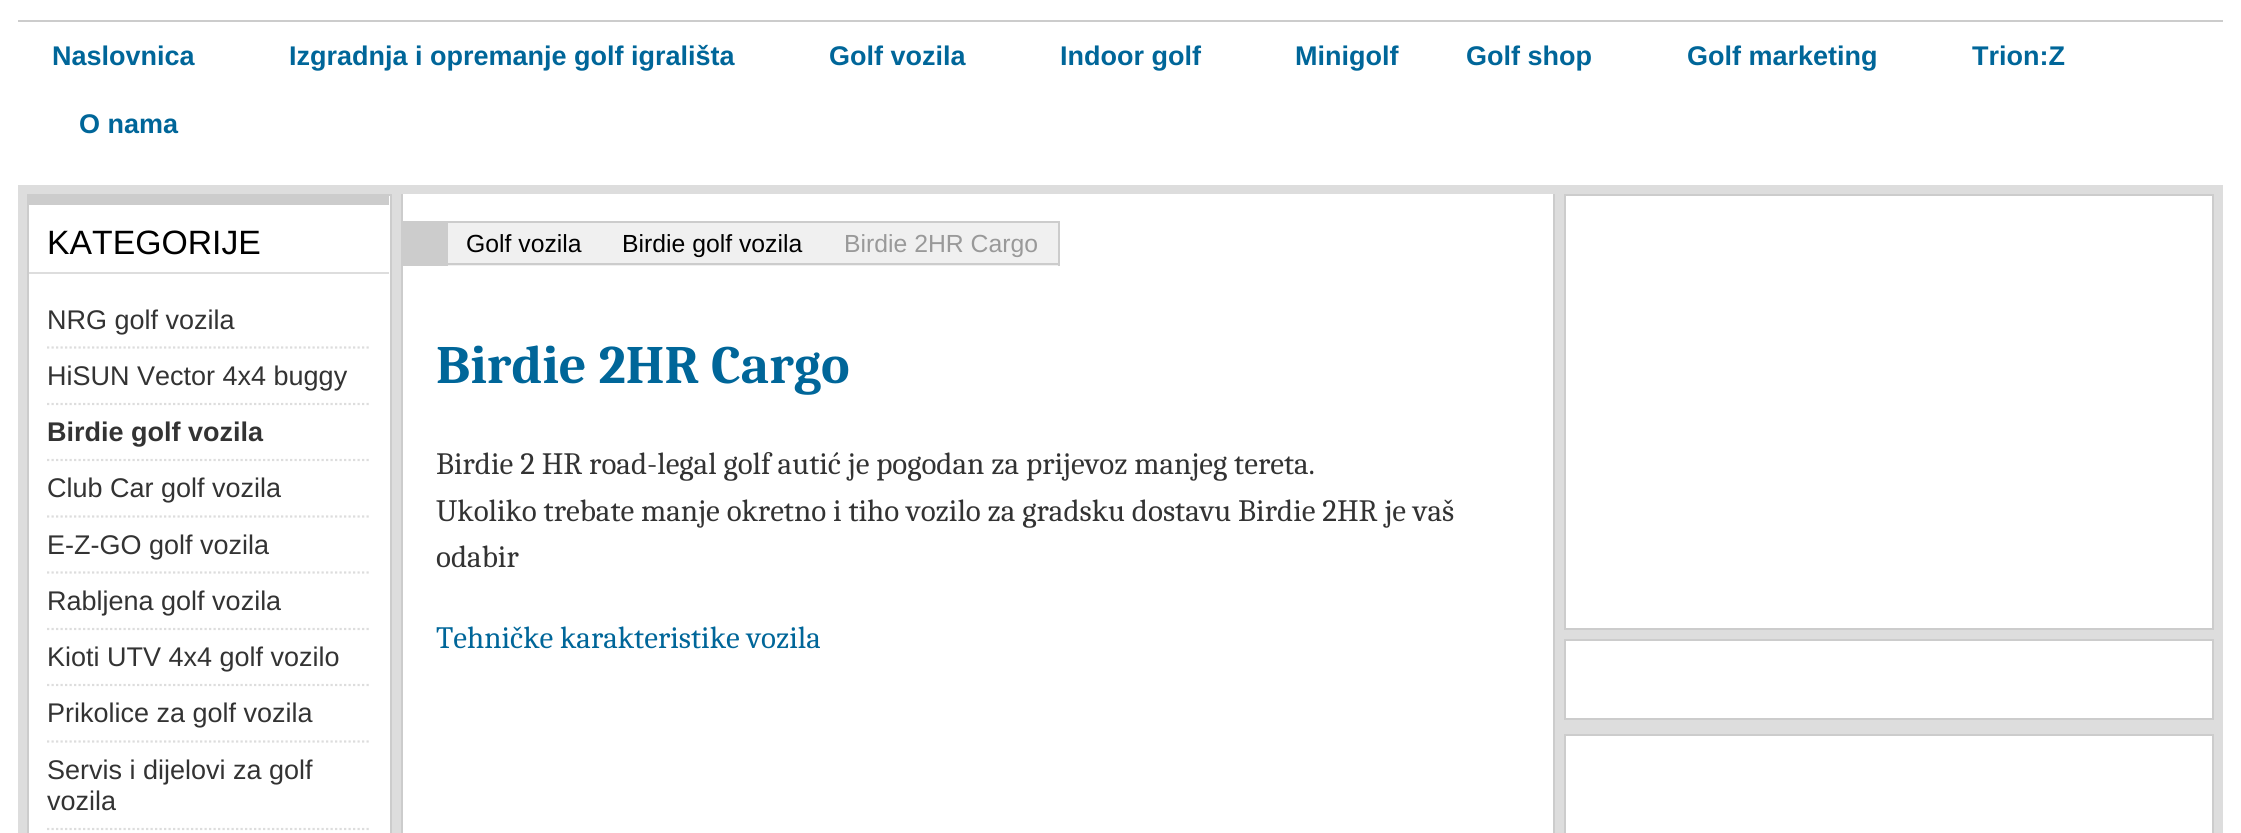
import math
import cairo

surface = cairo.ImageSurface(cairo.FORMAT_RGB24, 2241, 833)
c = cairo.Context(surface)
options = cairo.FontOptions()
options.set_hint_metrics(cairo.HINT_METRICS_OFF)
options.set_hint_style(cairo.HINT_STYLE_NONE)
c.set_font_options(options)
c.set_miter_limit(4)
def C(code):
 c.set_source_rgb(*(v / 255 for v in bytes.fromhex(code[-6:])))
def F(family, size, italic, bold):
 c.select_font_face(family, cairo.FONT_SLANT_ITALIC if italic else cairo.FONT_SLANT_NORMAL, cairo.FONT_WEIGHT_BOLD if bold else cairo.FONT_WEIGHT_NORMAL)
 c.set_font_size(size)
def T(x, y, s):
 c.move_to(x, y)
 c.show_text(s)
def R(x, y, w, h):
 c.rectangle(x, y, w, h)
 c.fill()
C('ffffff')
c.paint()
C('cccccc')
R(18,20,2205,2)
F('Liberation Sans',27,0,1)
C('006699')
T(52,65,'Naslovnica')
T(289,65,'Izgradnja i opremanje golf igrališta')
T(829,65,'Golf vozila')
T(1060,65,'Indoor golf')
T(1295,65,'Minigolf')
T(1466,65,'Golf shop')
T(1687,65,'Golf marketing')
T(1972,65,'Trion:Z')
T(79,133,'O nama')
C('dddddd')
R(18,185,2205,648)
C('ffffff')
c.rectangle(28,195,363,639)
c.fill_preserve()
C('cccccc')
c.stroke()
R(29,196,360,9)
C('dddddd')
R(29,272,360,2)
F('Liberation Sans',33.75,0,0)
C('000000')
T(47,254,'KATEGORIJE')
c.new_path()
c.move_to(47,347.5)
c.line_to(371,347.5)
C('dddddd')
c.set_line_width(2.2)
c.set_dash([2.25,2.25])
c.stroke()
F('Liberation Sans',27,0,0)
C('333333')
T(47,329,'NRG golf vozila')
c.new_path()
c.move_to(47,404)
c.line_to(371,404)
C('dddddd')
c.stroke()
C('333333')
T(47,385,'HiSUN Vector 4x4 buggy')
c.new_path()
c.move_to(47,460)
c.line_to(371,460)
C('dddddd')
c.stroke()
F('Liberation Sans',27,0,1)
C('333333')
T(47,441,'Birdie golf vozila')
c.new_path()
c.move_to(47,516.5)
c.line_to(371,516.5)
C('dddddd')
c.stroke()
F('Liberation Sans',27,0,0)
C('333333')
T(47,497,'Club Car golf vozila')
c.new_path()
c.move_to(47,572.5)
c.line_to(371,572.5)
C('dddddd')
c.stroke()
C('333333')
T(47,554,'E-Z-GO golf vozila')
c.new_path()
c.move_to(47,629)
c.line_to(371,629)
C('dddddd')
c.stroke()
C('333333')
T(47,610,'Rabljena golf vozila')
c.new_path()
c.move_to(47,685)
c.line_to(371,685)
C('dddddd')
c.stroke()
C('333333')
T(47,666,'Kioti UTV 4x4 golf vozilo')
c.new_path()
c.move_to(47,741.5)
c.line_to(371,741.5)
C('dddddd')
c.stroke()
C('333333')
T(47,722,'Prikolice za golf vozila')
c.new_path()
c.move_to(47,829)
c.line_to(371,829)
C('dddddd')
c.stroke()
C('333333')
T(47,779,'Servis i dijelovi za golf')
T(47,810,'vozila')
C('ffffff')
R(403,194,1150,639)
C('cccccc')
R(1553,194,2,639)
R(401,194,2,639)
C('f0f0f0')
R(448,223,610,43)
C('cccccc')
R(448,221,612,2)
R(1058,221,2,45)
R(448,263,612,2)
R(403,221,45,45)
F('Liberation Sans',24.75,0,0)
C('000000')
T(466,252,'Golf vozila')
T(622,252,'Birdie golf vozila')
C('999999')
T(844,252,'Birdie 2HR Cargo')
F('Caladea',54,0,1)
C('006699')
T(436,383,'Birdie 2HR Cargo')
F('Caladea',31.05,0,0)
C('333333')
T(436,474,'Birdie 2 HR road-legal golf autić je pogodan za prijevoz manjeg tereta.')
T(436,521,'Ukoliko trebate manje okretno i tiho vozilo za gradsku dostavu Birdie 2HR je vaš')
T(436,567,'odabir')
C('006699')
T(436,648,'Tehničke karakteristike vozila')
C('ffffff')
c.rectangle(1565,195,648,434)
c.fill_preserve()
C('cccccc')
c.set_line_width(2)
c.set_dash([])
c.stroke()
C('ffffff')
c.rectangle(1565,640,648,79)
c.fill_preserve()
C('cccccc')
c.stroke()
C('ffffff')
c.rectangle(1565,735,648,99)
c.fill_preserve()
C('cccccc')
c.stroke()
surface.write_to_png('o.png')
